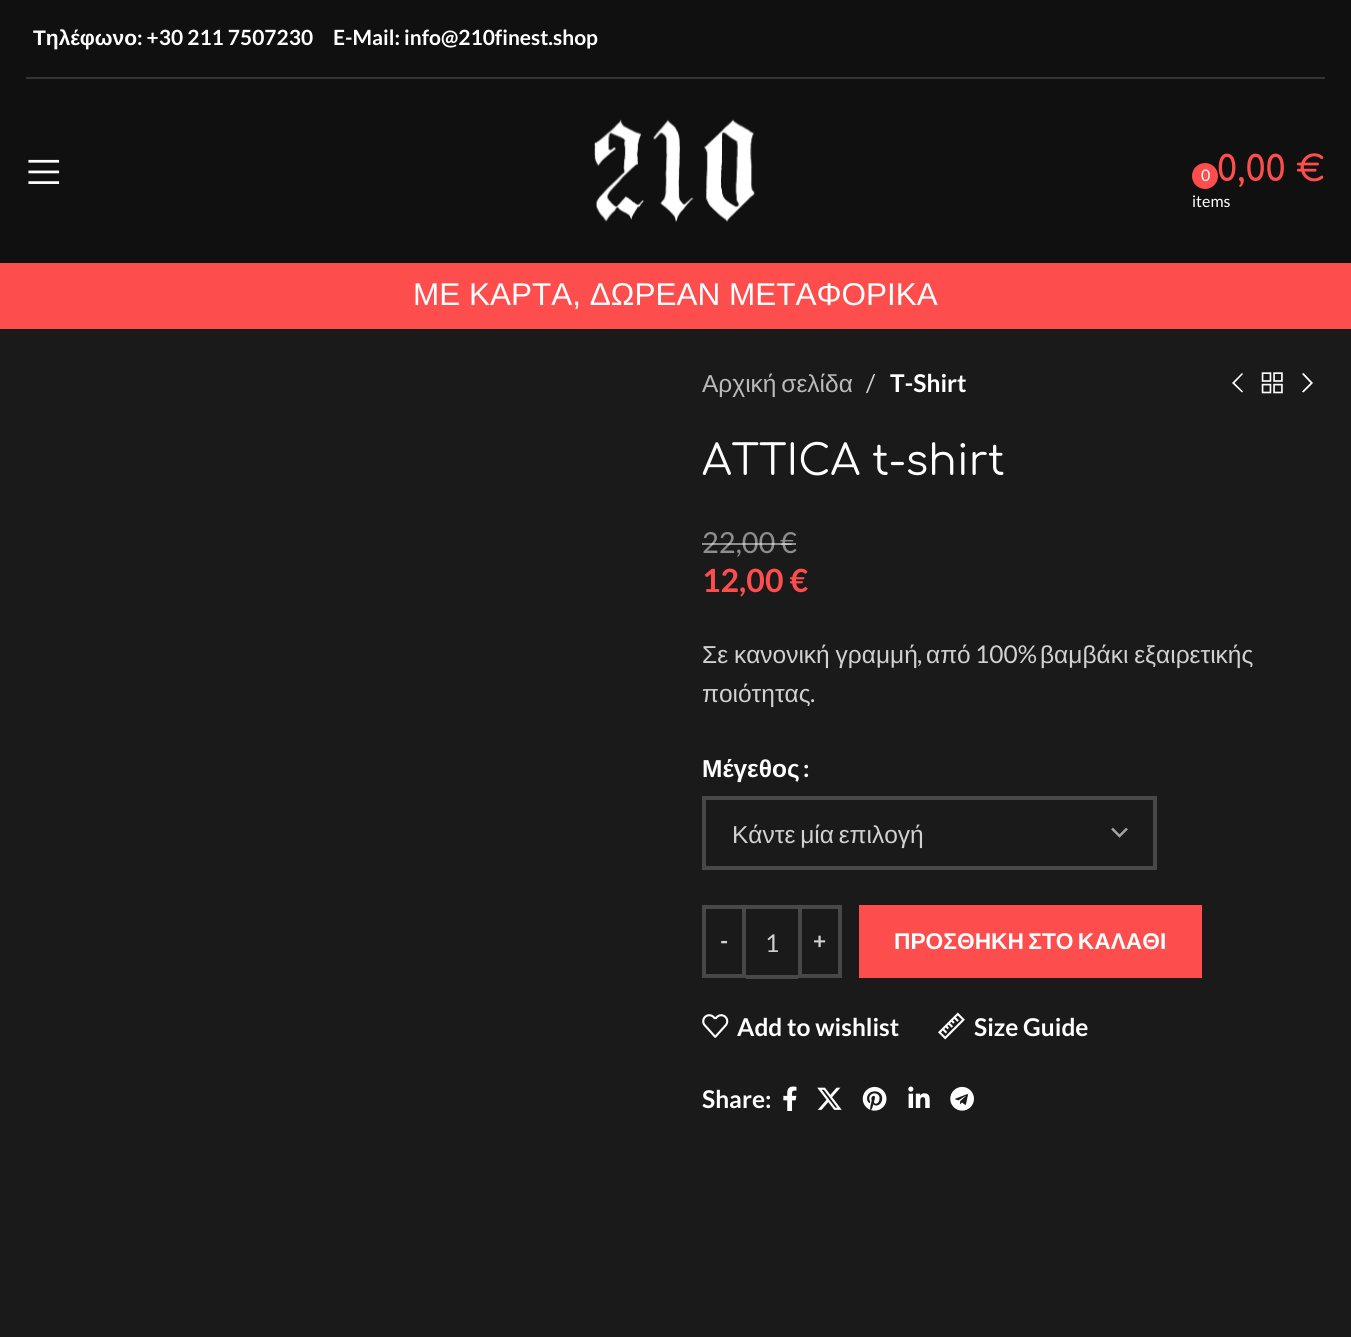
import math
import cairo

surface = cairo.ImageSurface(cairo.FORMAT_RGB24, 1351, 1337)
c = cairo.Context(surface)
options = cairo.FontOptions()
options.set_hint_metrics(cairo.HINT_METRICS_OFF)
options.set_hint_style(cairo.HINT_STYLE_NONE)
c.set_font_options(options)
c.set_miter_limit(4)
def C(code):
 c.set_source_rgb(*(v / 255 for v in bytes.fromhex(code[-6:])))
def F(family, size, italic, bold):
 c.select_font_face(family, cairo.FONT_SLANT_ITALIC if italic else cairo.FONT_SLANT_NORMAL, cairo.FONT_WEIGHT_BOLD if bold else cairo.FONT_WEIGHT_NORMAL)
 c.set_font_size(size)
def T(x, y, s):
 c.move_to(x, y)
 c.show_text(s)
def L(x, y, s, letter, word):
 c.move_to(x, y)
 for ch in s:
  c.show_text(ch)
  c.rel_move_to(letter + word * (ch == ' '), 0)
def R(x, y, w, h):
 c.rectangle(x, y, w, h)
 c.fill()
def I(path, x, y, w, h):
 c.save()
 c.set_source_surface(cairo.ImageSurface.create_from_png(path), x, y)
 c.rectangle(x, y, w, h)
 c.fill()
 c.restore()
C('1a1a1a')
c.paint()
C('101010')
R(0,0,1351,263)
C('343434')
R(26,77,1299,2)
F('Liberation Sans',21,0,1)
C('ffffff')
T(33,45,'Τηλέφωνο')
F('Lato',21,0,1)
T(137,45,': +30 211 7507230')
T(333,45,'E-Mail: info@210finest.shop')
I('1.png',28,159,32,25)
I('2.png',594,119,161,103)
C('fd4d4d')
c.arc(1205,176,13,0,2 * math.pi)
c.fill()
F('Lato',16,0,0)
C('ffffff')
T(1201,181,'0')
T(1192,207,'items')
F('Comfortaa SemiBold',35,0,0)
C('fd4d4d')
T(1217,181,'0,00 €')
R(0,263,1351,66)
F('Liberation Sans',31.5,0,0)
C('ffffff')
T(413,305,'ΜΕ ΚΑΡΤΑ, ΔΩΡΕΑΝ ΜΕΤΑΦΟΡΙΚΑ')
F('Liberation Sans',24.5,0,0)
C('bababa')
L(702,392,'Αρχική σελίδα',0,-2)
F('Lato',24.5,0,0)
C('d1d1d1')
T(866,392,'/')
F('Lato',24.5,0,1)
C('ffffff')
T(890,392,'T-Shirt')
c.new_path()
c.move_to(1243,374)
c.line_to(1242,373)
c.line_to(1232,383)
c.line_to(1242,392.5)
c.line_to(1243,391.5)
c.line_to(1234.5,383)
c.close_path()
c.fill()
I('3.png',1261,372,22,22)
c.new_path()
c.move_to(1302,374)
c.line_to(1310.5,383)
c.line_to(1302,391.5)
c.line_to(1303.5,392.5)
c.line_to(1313,383)
c.line_to(1303.5,373)
c.close_path()
c.fill()
F('Comfortaa',42,0,0)
T(702,475,'ATTICA t-shirt')
F('Lato',29,0,0)
C('8d8d8d')
T(702,553,'22,00')
c.set_source_rgba(1,1,1,0.5)
R(702,543,79,2)
C('8d8d8d')
T(780,553,'€')
c.set_source_rgba(1,1,1,0.5)
R(781,543,15,2)
F('Lato',32,0,1)
C('fd4d4d')
T(702,592,'12,00 €')
F('Liberation Sans',24.5,0,0)
C('d1d1d1')
L(702,663,'Σε κανονική γραμμή',0,-1)
F('Lato',24.5,0,0)
T(917,663,',')
F('Liberation Sans',24.5,0,0)
T(926,663,'από')
F('Lato',24.5,0,0)
T(975,663,'100%')
F('Liberation Sans',24.5,0,0)
L(1040,663,'βαμβάκι εξαιρετικής',0,-1)
T(702,702,'ποιότητας')
F('Lato',24.5,0,0)
T(810,702,'.')
F('Liberation Sans',24.5,0,1)
C('ffffff')
T(702,777,'Μέγεθος')
F('Lato',24.5,0,1)
T(803,777,':')
c.new_path()
c.move_to(1112,828.5)
c.line_to(1119.5,836)
c.line_to(1127,828.5)
C('a3a3a3')
c.set_line_width(2.5)
c.stroke()
c.rectangle(704,798,451,70)
C('484848')
c.set_line_width(4)
c.stroke()
F('Liberation Sans',24.5,0,0)
C('d1d1d1')
L(732,843,'Κάντε μία επιλογή',0,-2)
c.rectangle(704,907,40,69)
C('484848')
c.stroke()
F('Lato',22.75,0,1)
C('d1d1d1')
T(720,949,'-')
C('484848')
R(746,905,52,4)
R(746,975,52,4)
F('Lato',24.5,0,0)
C('d1d1d1')
T(765,952,'1')
c.rectangle(800,907,40,69)
C('484848')
c.stroke()
F('Lato',22.75,0,1)
C('d1d1d1')
T(813,949,'+')
C('fd4d4d')
R(859,905,343,73)
F('Liberation Sans',22.75,0,1)
C('ffffff')
L(894,949,'ΠΡΟΣΘΗΚΗ ΣΤΟ ΚΑΛΑΘΙ',0,-2)
I('4.png',702,1014,27,24)
F('Lato',24.5,0,1)
T(737,1036,'Add to wishlist')
I('5.png',938,1012,27,28)
T(974,1036,'Size Guide')
T(702,1108,'Share:')
I('6.png',783,1086,14,25)
I('7.png',817,1087,25,23)
I('8.png',862,1086,25,25)
I('9.png',908,1086,22,22)
I('10.png',950,1086,24,25)
surface.write_to_png('o.png')
